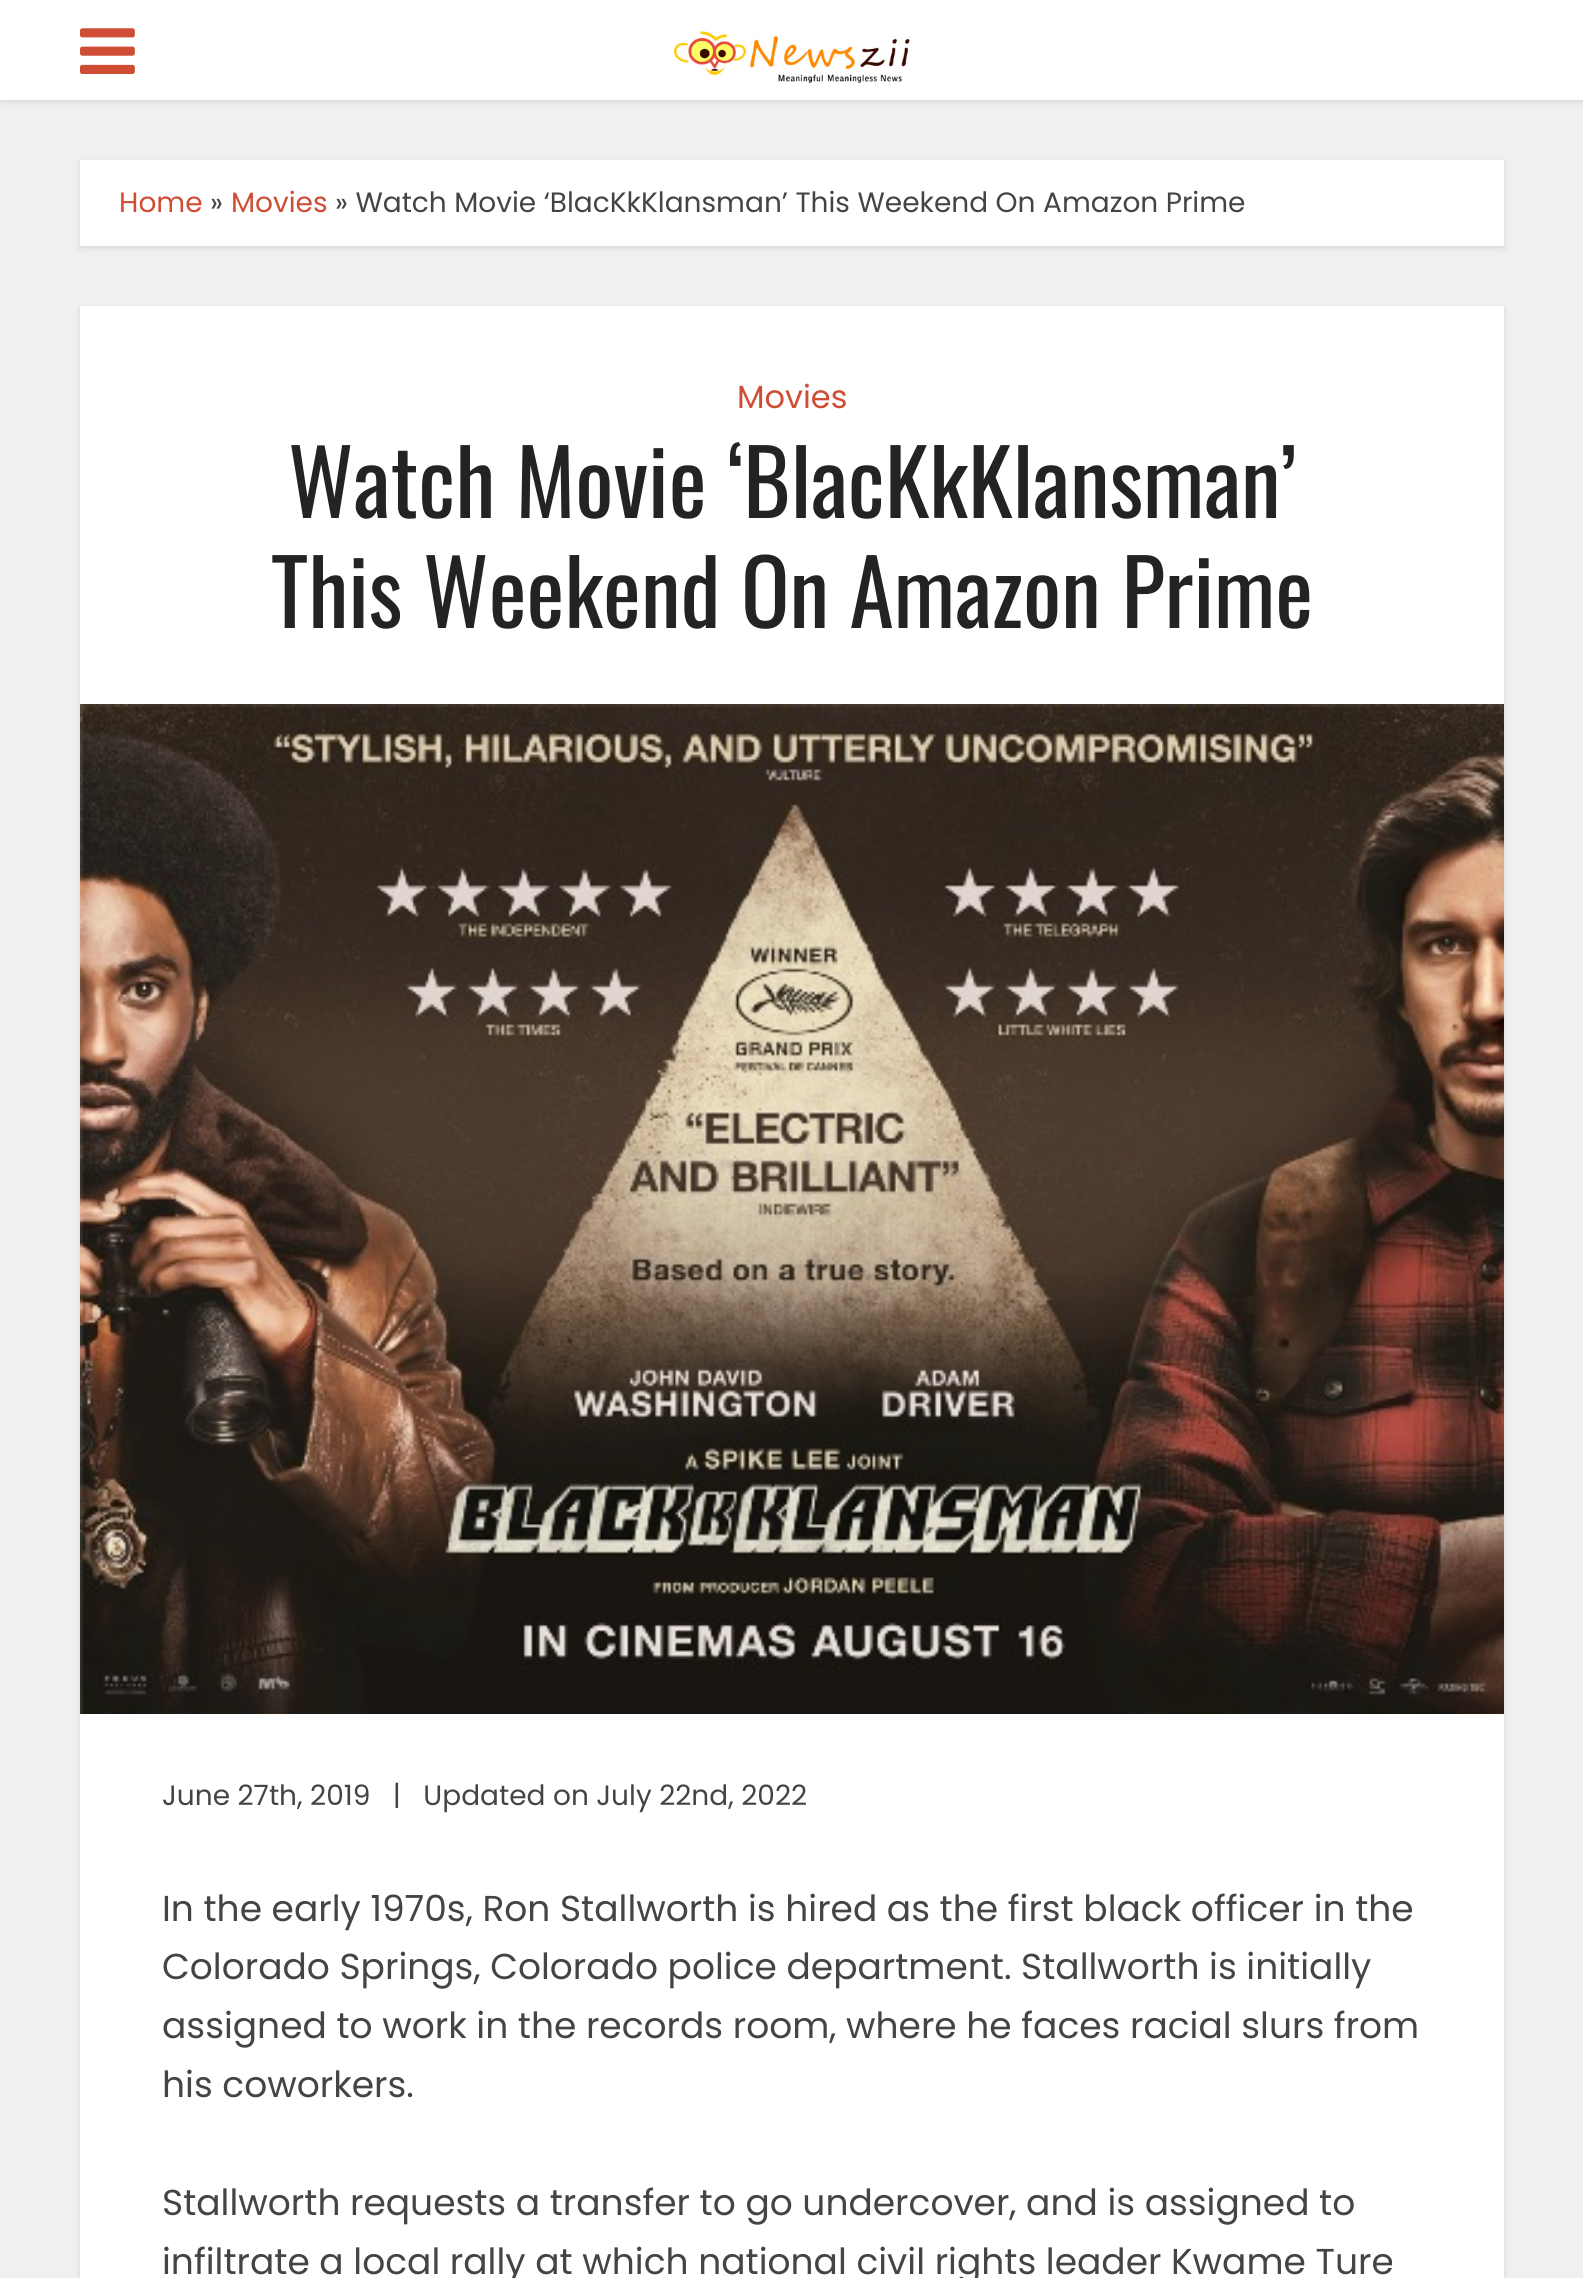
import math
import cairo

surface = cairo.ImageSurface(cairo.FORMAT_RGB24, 1583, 2278)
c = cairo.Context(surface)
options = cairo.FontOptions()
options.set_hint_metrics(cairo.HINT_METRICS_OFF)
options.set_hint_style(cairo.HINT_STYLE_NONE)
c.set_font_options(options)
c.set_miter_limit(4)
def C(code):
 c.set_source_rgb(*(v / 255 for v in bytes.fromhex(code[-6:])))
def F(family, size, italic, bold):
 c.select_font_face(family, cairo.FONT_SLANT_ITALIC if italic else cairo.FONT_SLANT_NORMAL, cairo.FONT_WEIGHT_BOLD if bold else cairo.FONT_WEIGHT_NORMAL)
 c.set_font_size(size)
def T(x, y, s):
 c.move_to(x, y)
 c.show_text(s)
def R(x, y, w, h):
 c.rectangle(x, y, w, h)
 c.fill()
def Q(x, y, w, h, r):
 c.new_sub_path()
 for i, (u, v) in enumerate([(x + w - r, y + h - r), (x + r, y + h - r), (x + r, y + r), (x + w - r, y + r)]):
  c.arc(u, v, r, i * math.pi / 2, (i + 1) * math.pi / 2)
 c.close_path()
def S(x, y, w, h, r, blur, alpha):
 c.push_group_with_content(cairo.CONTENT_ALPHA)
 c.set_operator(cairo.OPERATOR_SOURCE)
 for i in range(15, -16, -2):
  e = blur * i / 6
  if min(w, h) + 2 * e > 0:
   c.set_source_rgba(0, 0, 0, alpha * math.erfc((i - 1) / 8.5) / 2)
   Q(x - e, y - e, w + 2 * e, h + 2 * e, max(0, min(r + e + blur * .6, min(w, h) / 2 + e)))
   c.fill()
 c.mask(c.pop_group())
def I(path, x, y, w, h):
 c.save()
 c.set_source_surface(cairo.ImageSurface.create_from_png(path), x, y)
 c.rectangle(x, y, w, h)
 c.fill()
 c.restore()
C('f0f0f0')
c.paint()
C('000000')
S(0,2,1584,100,0,3,.1)
C('ffffff')
R(0,0,1583,100)
I('1.png',80,28,55,46)
I('2.png',673,31,237,52)
C('000000')
S(80,162,1424,86,0,3,.1)
C('ffffff')
R(80,160,1424,86)
F('Poppins',28,0,0)
C('cf4d35')
T(119,212,'Home')
C('444444')
T(210,212,'»')
C('cf4d35')
T(231,212,'Movies')
C('444444')
T(335,212,'» Watch Movie ‘BlacKkKlansman’ This Weekend On Amazon Prime')
C('000000')
S(80,308,1424,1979,0,3,.1)
C('ffffff')
R(80,306,1424,1972)
F('Poppins',32,0,0)
C('cf4d35')
T(737,408,'Movies')
F('Oswald',90,0,0)
C('232323')
T(288,518,'Watch Movie ‘BlacKkKlansman’')
T(271,628,'This Weekend On Amazon Prime')
I('3.png',80,704,1424,1010)
F('Poppins',28,0,0)
C('444444')
T(162,1805,'June 27th, 2019   |   Updated on July 22nd, 2022')
F('Poppins',36,0,0)
T(162,1921,'In the early 1970s, Ron Stallworth is hired as the first black officer in the')
T(162,1979,'Colorado Springs, Colorado police department. Stallworth is initially')
T(162,2038,'assigned to work in the records room, where he faces racial slurs from')
T(162,2097,'his coworkers.')
T(162,2215,'Stallworth requests a transfer to go undercover, and is assigned to')
T(162,2274,'infiltrate a local rally at which national civil rights leader Kwame Ture')
surface.write_to_png('o.png')
